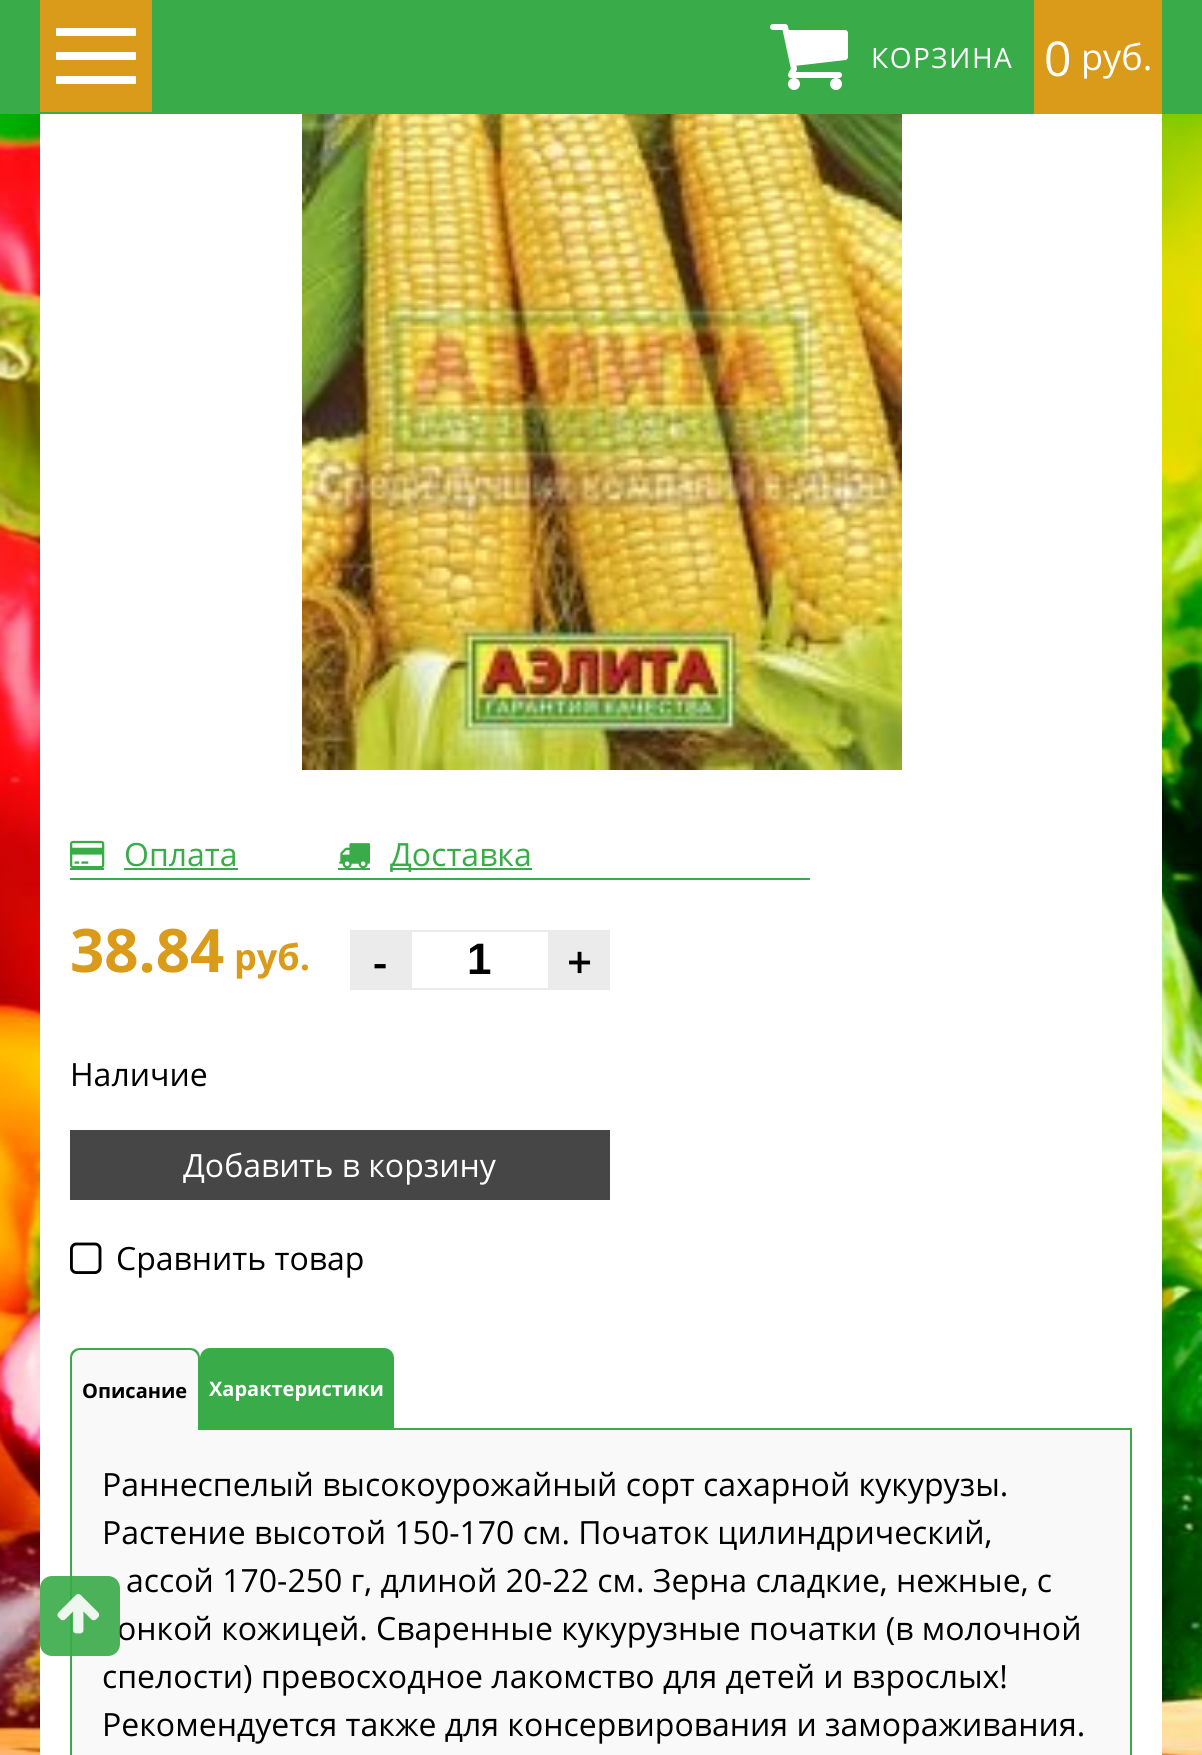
import math
import cairo

surface = cairo.ImageSurface(cairo.FORMAT_RGB24, 1202, 1755)
c = cairo.Context(surface)
options = cairo.FontOptions()
options.set_hint_metrics(cairo.HINT_METRICS_OFF)
options.set_hint_style(cairo.HINT_STYLE_NONE)
c.set_font_options(options)
c.set_miter_limit(4)
def C(code):
 c.set_source_rgb(*(v / 255 for v in bytes.fromhex(code[-6:])))
def F(family, size, italic, bold):
 c.select_font_face(family, cairo.FONT_SLANT_ITALIC if italic else cairo.FONT_SLANT_NORMAL, cairo.FONT_WEIGHT_BOLD if bold else cairo.FONT_WEIGHT_NORMAL)
 c.set_font_size(size)
def T(x, y, s):
 c.move_to(x, y)
 c.show_text(s)
def L(x, y, s, letter, word):
 c.move_to(x, y)
 for ch in s:
  c.show_text(ch)
  c.rel_move_to(letter + word * (ch == ' '), 0)
def R(x, y, w, h):
 c.rectangle(x, y, w, h)
 c.fill()
def Q(x, y, w, h, r):
 c.new_sub_path()
 for i, (u, v) in enumerate([(x + w - r, y + h - r), (x + r, y + h - r), (x + r, y + r), (x + w - r, y + r)]):
  c.arc(u, v, r, i * math.pi / 2, (i + 1) * math.pi / 2)
 c.close_path()
def I(path, x, y, w, h):
 c.save()
 c.set_source_surface(cairo.ImageSurface.create_from_png(path), x, y)
 c.rectangle(x, y, w, h)
 c.fill()
 c.restore()
C('ffffff')
c.paint()
I('1.png',0,114,1202,1641)
C('39ab49')
R(0,0,1202,114)
C('d99b19')
R(40,0,112,112)
C('ffffff')
R(56,28,80,8)
R(56,52,80,8)
R(56,76,80,8)
I('2.png',770,24,78,66)
F('Open Sans',28,0,0)
L(871,68,'КОРЗИНА',1.5,0)
C('d99b19')
R(1034,0,128,114)
F('Open Sans',48,0,0)
C('ffffff')
T(1044,76,'0')
F('Open Sans',36,0,0)
T(1081,70,'руб.')
R(40,114,1122,1641)
I('3.png',302,114,600,656)
C('39ab49')
R(70,878,740,2)
I('4.png',70,840,35,28)
F('Open Sans',32,0,0)
T(124,866,'Оплата')
R(70,868,34,2)
R(124,868,114,2)
I('5.png',339,843,31,25)
R(390,868,142,2)
T(390,866,'Доставка')
R(338,868,32,2)
F('Open Sans',60,0,1)
C('d99b19')
T(70,972,'38.84')
F('Open Sans',36,0,1)
T(234,970,'руб.')
C('ebebeb')
R(350,930,60,60)
F('Open Sans SemiBold',44,0,0)
C('000000')
T(373,978,'-')
c.rectangle(411,931,138,58)
C('ebebeb')
c.stroke()
F('Liberation Sans',44,0,1)
C('000000')
T(467,974,'1')
C('ebebeb')
R(550,930,60,60)
F('Open Sans SemiBold',44,0,0)
C('000000')
T(567,978,'+')
F('Open Sans',32,0,0)
T(70,1086,'Наличие')
C('464646')
R(70,1130,540,70)
C('ffffff')
T(183,1177,'Добавить в корзину')
I('6.png',70,1242,32,32)
C('000000')
T(116,1270,'Cравнить товар')
C('f9f9f9')
c.rectangle(71,1429,1060,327)
c.fill_preserve()
C('39ab49')
c.stroke()
C('f9f9f9')
c.new_path()
c.move_to(80,1348)
c.line_to(190,1348)
c.curve_to(195.5,1348,200,1352.5,200,1358)
c.line_to(200,1430)
c.line_to(70,1430)
c.line_to(70,1358)
c.curve_to(70,1352.5,74.5,1348,80,1348)
c.close_path()
c.fill()
C('39ab49')
c.set_fill_rule(cairo.FILL_RULE_EVEN_ODD)
c.new_path()
c.move_to(80,1348)
c.line_to(190,1348)
c.curve_to(196,1348,200,1352,200,1358)
c.line_to(200,1430)
c.line_to(70,1430)
c.line_to(70,1358)
c.curve_to(70,1352,74,1348,80,1348)
c.close_path()
c.move_to(80,1350)
c.line_to(190,1350)
c.curve_to(194,1350,198,1354,198,1358)
c.line_to(198,1430)
c.line_to(72,1430)
c.line_to(72,1358)
c.curve_to(72,1354,76,1350,80,1350)
c.close_path()
c.fill()
F('Open Sans',20,0,1)
C('000000')
T(82,1398,'Описание')
C('39ab49')
c.new_path()
c.move_to(210,1348)
c.line_to(384,1348)
c.curve_to(389.5,1348,394,1352.5,394,1358)
c.line_to(394,1428)
c.line_to(200,1428)
c.line_to(200,1358)
c.curve_to(200,1352.5,204.5,1348,210,1348)
c.close_path()
c.fill()
C('ffffff')
T(209,1396,'Характеристики')
F('Open Sans',32,0,0)
C('000000')
T(102,1496,'Раннеспелый высокоурожайный сорт сахарной кукурузы.')
T(102,1544,'Растение высотой 150-170 см. Початок цилиндрический,')
T(126,1592,'ассой 170-250 г, длиной 20-22 см. Зерна сладкие, нежные, с')
T(117,1640,'онкой кожицей. Сваренные кукурузные початки (в молочной')
T(102,1688,'спелости) превосходное лакомство для детей и взрослых!')
T(102,1736,'Рекомендуется также для консервирования и замораживания.')
c.set_source_rgba(0.224,0.671,0.286,0.9)
Q(40,1576,80,80,12)
c.fill()
I('7.png',57,1594,43,40)
surface.write_to_png('o.png')
